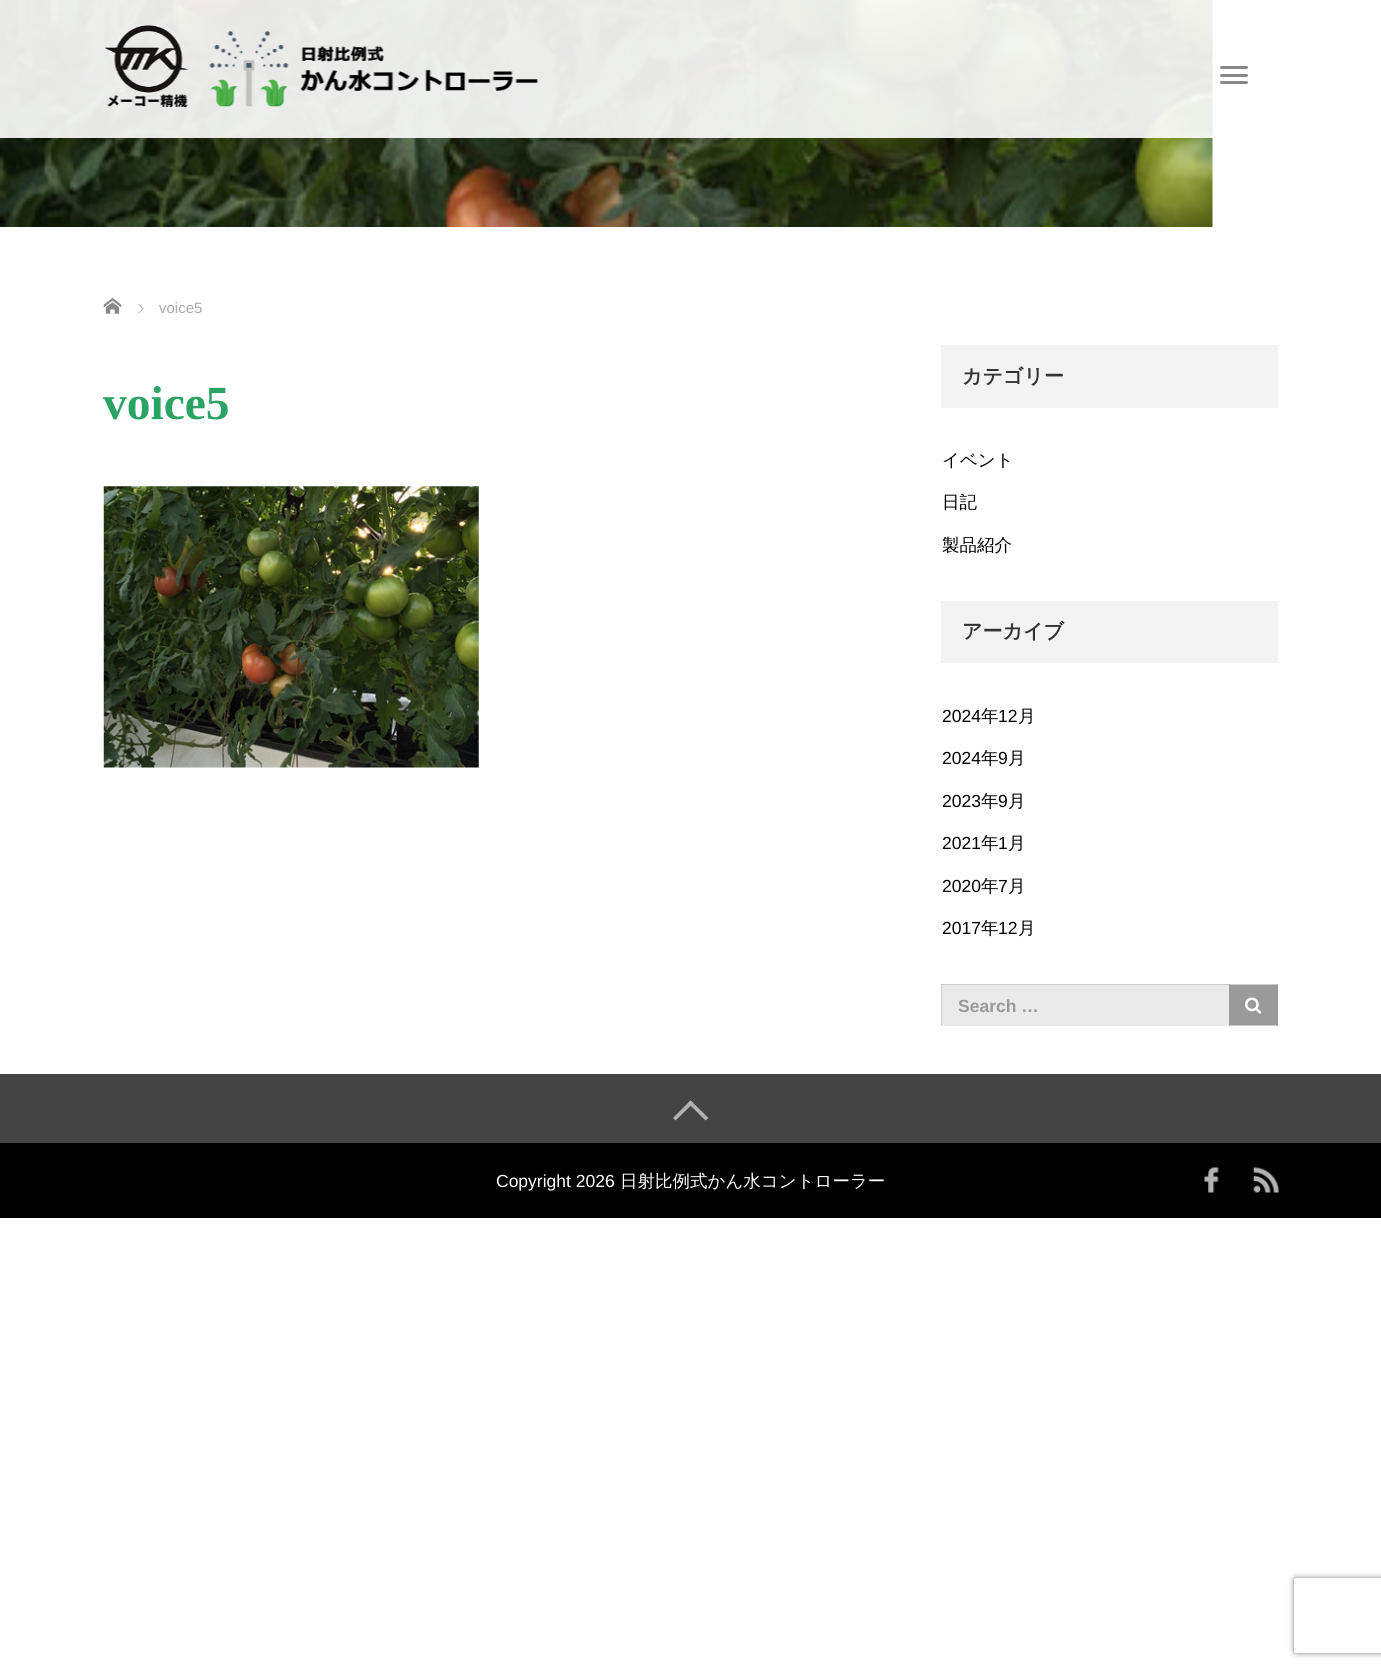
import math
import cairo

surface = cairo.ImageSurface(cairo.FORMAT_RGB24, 1381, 1670)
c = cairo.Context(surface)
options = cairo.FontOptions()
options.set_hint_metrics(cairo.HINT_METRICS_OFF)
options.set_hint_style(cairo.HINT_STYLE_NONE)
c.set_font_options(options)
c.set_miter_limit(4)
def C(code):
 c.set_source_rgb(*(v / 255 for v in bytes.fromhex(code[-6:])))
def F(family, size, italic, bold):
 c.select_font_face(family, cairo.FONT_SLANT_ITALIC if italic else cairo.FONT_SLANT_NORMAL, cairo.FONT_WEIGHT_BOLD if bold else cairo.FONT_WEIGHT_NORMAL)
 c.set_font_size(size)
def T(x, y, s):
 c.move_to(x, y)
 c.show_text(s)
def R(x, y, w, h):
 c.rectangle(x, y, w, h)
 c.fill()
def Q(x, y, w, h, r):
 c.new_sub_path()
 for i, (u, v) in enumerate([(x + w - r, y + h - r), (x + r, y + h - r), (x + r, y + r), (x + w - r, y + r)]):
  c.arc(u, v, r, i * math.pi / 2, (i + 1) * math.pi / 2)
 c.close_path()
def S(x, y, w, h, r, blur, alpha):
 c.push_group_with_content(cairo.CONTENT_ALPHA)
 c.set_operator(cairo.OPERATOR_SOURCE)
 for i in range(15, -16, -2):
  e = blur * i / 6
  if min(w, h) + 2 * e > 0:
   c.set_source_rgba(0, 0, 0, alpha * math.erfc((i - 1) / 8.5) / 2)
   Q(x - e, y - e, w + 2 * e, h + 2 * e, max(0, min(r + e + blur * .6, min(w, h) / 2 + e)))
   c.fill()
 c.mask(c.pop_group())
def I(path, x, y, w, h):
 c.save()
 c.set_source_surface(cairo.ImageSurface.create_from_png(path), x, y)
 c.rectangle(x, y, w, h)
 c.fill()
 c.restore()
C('ffffff')
c.paint()
I('1.png',0,0,1213,227)
c.set_source_rgba(1,1,1,0.9)
R(0,0,1213,138)
I('2.png',104,25,87,83)
I('3.png',209,31,329,76)
C('888888')
Q(1220,66,28,3,1.5)
c.fill()
Q(1220,74,28,3,1.5)
c.fill()
Q(1220,81,28,3,1.5)
c.fill()
I('4.png',103,298,19,16)
I('5.png',138,303,6,11)
F('Liberation Sans',15,0,0)
C('aaaaaa')
T(159,313,'voice5')
F('Liberation Serif',47.5,0,1)
C('2aa365')
T(103,419,'voice5')
I('6.png',103,486,376,282)
C('f3f3f3')
R(941,345,337,63)
F('WenQuanYi Zen Hei',20,0,1)
C('333333')
T(962,383,'カテゴリー')
F('WenQuanYi Zen Hei Medium',17.5,0,0)
C('000000')
T(942,466,'イベント')
T(942,508,'日記')
T(942,551,'製品紹介')
C('f3f3f3')
R(941,601,337,62)
F('WenQuanYi Zen Hei',20,0,1)
C('333333')
T(962,638,'アーカイブ')
F('Liberation Sans',17.5,0,0)
C('000000')
T(942,722,'2024')
F('WenQuanYi Zen Hei Medium',17.5,0,0)
T(981,722,'年')
F('Liberation Sans',17.5,0,0)
T(998,722,'12')
F('WenQuanYi Zen Hei Medium',17.5,0,0)
T(1018,722,'月')
F('Liberation Sans',17.5,0,0)
T(942,764,'2024')
F('WenQuanYi Zen Hei Medium',17.5,0,0)
T(981,764,'年')
F('Liberation Sans',17.5,0,0)
T(998,764,'9')
F('WenQuanYi Zen Hei Medium',17.5,0,0)
T(1008,764,'月')
F('Liberation Sans',17.5,0,0)
T(942,807,'2023')
F('WenQuanYi Zen Hei Medium',17.5,0,0)
T(981,807,'年')
F('Liberation Sans',17.5,0,0)
T(998,807,'9')
F('WenQuanYi Zen Hei Medium',17.5,0,0)
T(1008,807,'月')
F('Liberation Sans',17.5,0,0)
T(942,849,'2021')
F('WenQuanYi Zen Hei Medium',17.5,0,0)
T(981,849,'年')
F('Liberation Sans',17.5,0,0)
T(998,849,'1')
F('WenQuanYi Zen Hei Medium',17.5,0,0)
T(1008,849,'月')
F('Liberation Sans',17.5,0,0)
T(942,892,'2020')
F('WenQuanYi Zen Hei Medium',17.5,0,0)
T(981,892,'年')
F('Liberation Sans',17.5,0,0)
T(998,892,'7')
F('WenQuanYi Zen Hei Medium',17.5,0,0)
T(1008,892,'月')
F('Liberation Sans',17.5,0,0)
T(942,934,'2017')
F('WenQuanYi Zen Hei Medium',17.5,0,0)
T(981,934,'年')
F('Liberation Sans',17.5,0,0)
T(998,934,'12')
F('WenQuanYi Zen Hei Medium',17.5,0,0)
T(1018,934,'月')
C('eaeaea')
R(941,985,288,41)
C('cccccc')
R(941,984,289,1)
c.new_path()
c.move_to(941,1026)
c.line_to(941,984)
c.line_to(942,985)
c.line_to(942,1025)
c.close_path()
c.fill()
F('Liberation Sans',17.5,0,1)
C('999999')
T(958,1012,'Search …')
C('9a9a9a')
R(1229,984,49,42)
C('cccccc')
c.new_path()
c.move_to(1229,984)
c.line_to(1278,984)
c.line_to(1276,985)
c.line_to(1230,985)
c.close_path()
c.move_to(1278,1026)
c.line_to(1229,1026)
c.line_to(1230,1025)
c.line_to(1276,1025)
c.close_path()
c.fill()
I('7.png',1245,997,17,17)
C('444444')
R(0,1074,1381,69)
C('b0b2b0')
c.new_path()
c.move_to(673,1118)
c.line_to(690.5,1100.5)
c.line_to(693.5,1103)
c.line_to(675.5,1120.5)
c.close_path()
c.fill()
c.new_path()
c.move_to(688,1103)
c.line_to(690.5,1100.5)
c.line_to(708.5,1118)
c.line_to(705.5,1120.5)
c.close_path()
c.fill()
C('000000')
R(0,1143,1381,75)
F('Liberation Sans',17.5,0,0)
C('ffffff')
T(496,1187,'Copyright 2026')
F('WenQuanYi Zen Hei Medium',17.5,0,0)
T(620,1187,'日射比例式かん水コントローラー')
I('8.png',1204,1167,15,26)
I('9.png',1253,1167,26,26)
c.save()
c.set_fill_rule(cairo.FILL_RULE_EVEN_ODD)
c.new_path()
c.move_to(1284,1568)
c.line_to(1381,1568)
c.line_to(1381,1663)
c.line_to(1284,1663)
c.close_path()
c.move_to(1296.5,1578)
c.line_to(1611.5,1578)
c.curve_to(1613,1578,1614,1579,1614,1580.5)
c.line_to(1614,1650.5)
c.curve_to(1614,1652,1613,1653,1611.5,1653)
c.line_to(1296.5,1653)
c.curve_to(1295,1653,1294,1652,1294,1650.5)
c.line_to(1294,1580.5)
c.curve_to(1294,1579,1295,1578,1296.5,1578)
c.close_path()
c.clip()
C('808080')
S(1294,1578,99,75,2.5,3,1)
c.restore()
surface.write_to_png('o.png')
